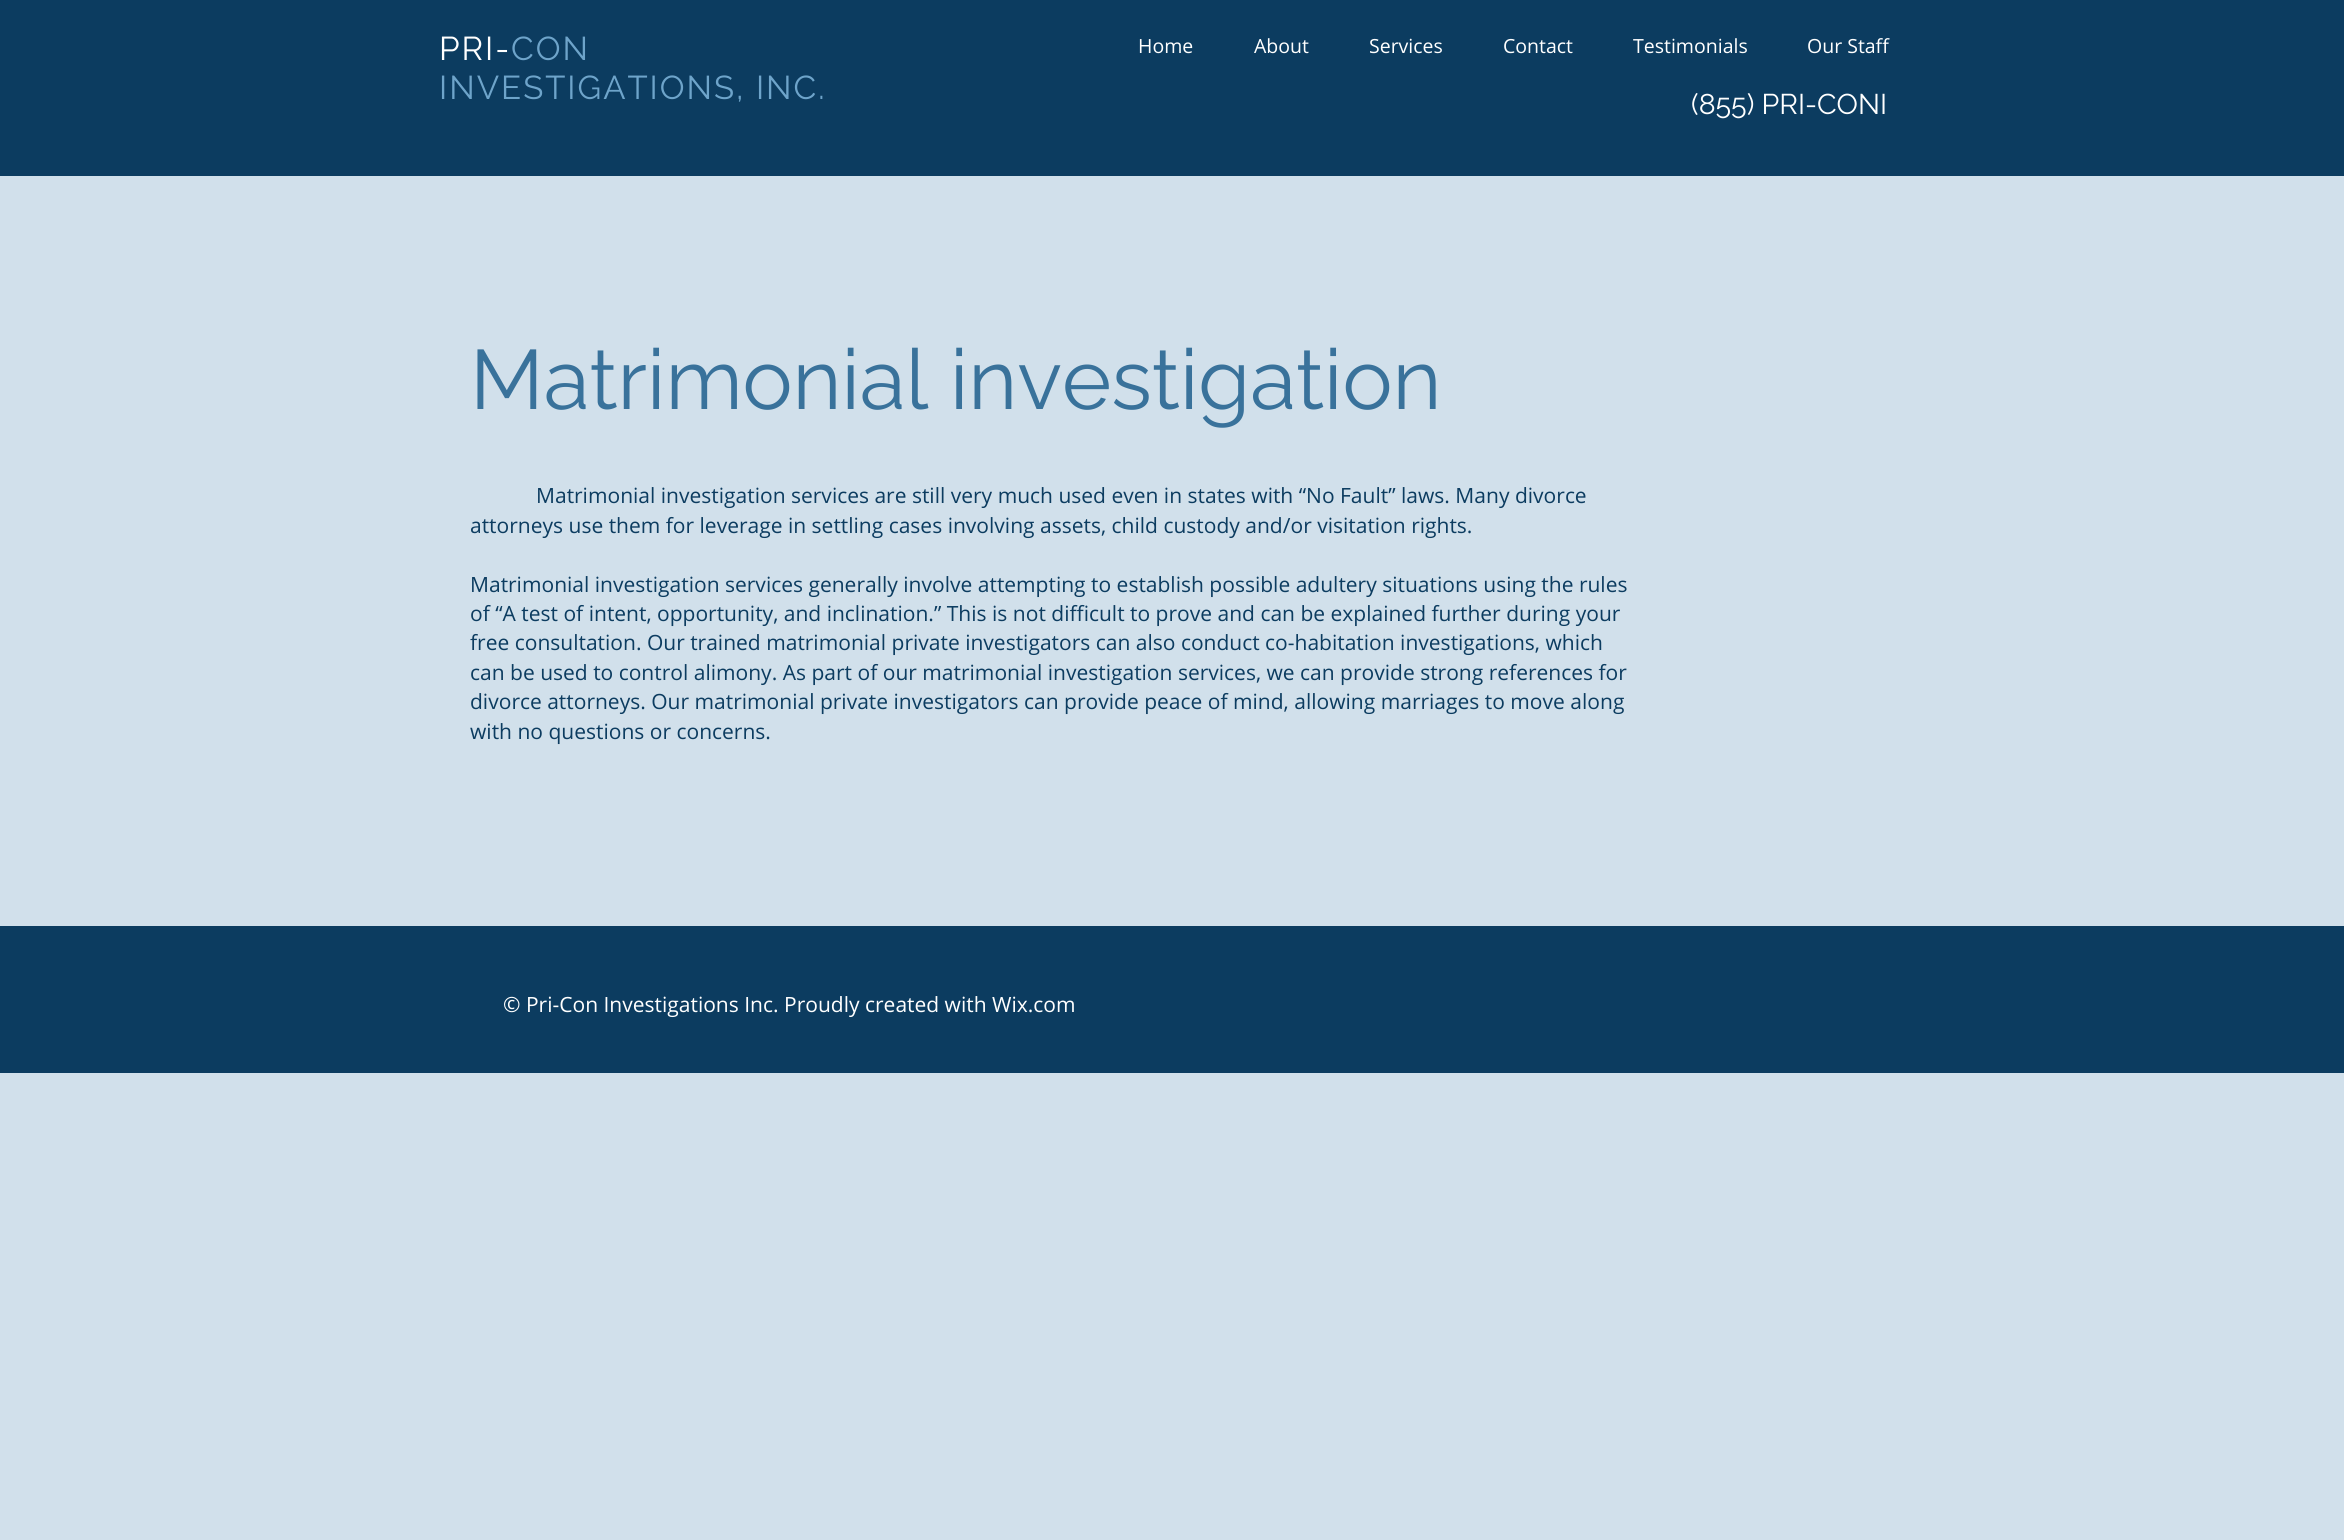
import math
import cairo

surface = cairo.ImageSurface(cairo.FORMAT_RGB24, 2344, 1540)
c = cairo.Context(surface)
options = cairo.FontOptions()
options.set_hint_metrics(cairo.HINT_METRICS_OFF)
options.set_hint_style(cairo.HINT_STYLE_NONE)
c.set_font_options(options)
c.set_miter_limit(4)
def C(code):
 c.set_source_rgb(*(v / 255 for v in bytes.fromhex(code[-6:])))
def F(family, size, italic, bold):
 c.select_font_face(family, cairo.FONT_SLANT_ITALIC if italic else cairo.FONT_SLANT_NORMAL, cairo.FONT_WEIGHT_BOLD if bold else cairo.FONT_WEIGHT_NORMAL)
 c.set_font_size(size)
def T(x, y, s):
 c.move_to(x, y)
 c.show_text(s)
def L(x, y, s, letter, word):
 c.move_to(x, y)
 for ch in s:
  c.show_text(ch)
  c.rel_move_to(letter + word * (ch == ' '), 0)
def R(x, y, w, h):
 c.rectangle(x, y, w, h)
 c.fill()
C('d1e0eb')
c.paint()
C('0c3c60')
R(0,0,2344,176)
F('Raleway',33,0,0)
C('ffffff')
L(439,60,'PRI-',2,0)
C('6ea4ca')
L(511,60,'CON',2,0)
L(439,99,'INVESTIGATIONS, INC.',2,0)
F('Open Sans',19.5,0,0)
C('ffffff')
T(1138,53,'Home')
T(1254,53,'About')
T(1369,53,'Services')
T(1503,53,'Contact')
T(1633,53,'Testimonials')
T(1807,53,'Our Staff')
F('Raleway',28.5,0,0)
T(1691,114,'(855) PRI-CONI')
F('Raleway',84,0,0)
C('39729b')
T(470,409,'Matrimonial investigation')
F('Open Sans',21,0,0)
C('0c3c60')
T(536,503,'Matrimonial investigation services are still very much used even in states with “No Fault” laws. Many divorce')
T(470,533,'attorneys use them for leverage in settling cases involving assets, child custody and/or visitation rights.')
T(470,592,'Matrimonial investigation services generally involve attempting to establish possible adultery situations using the rules')
T(470,621,'of “A test of intent, opportunity, and inclination.” This is not difficult to prove and can be explained further during your')
T(470,650,'free consultation. Our trained matrimonial private investigators can also conduct co-habitation investigations, which')
T(470,680,'can be used to control alimony. As part of our matrimonial investigation services, we can provide strong references for')
T(470,709,'divorce attorneys. Our matrimonial private investigators can provide peace of mind, allowing marriages to move along')
T(470,739,'with no questions or concerns.')
R(0,926,2344,147)
C('ffffff')
T(503,1012,'© Pri-Con Investigations Inc. Proudly created with Wix.com')
surface.write_to_png('o.png')
